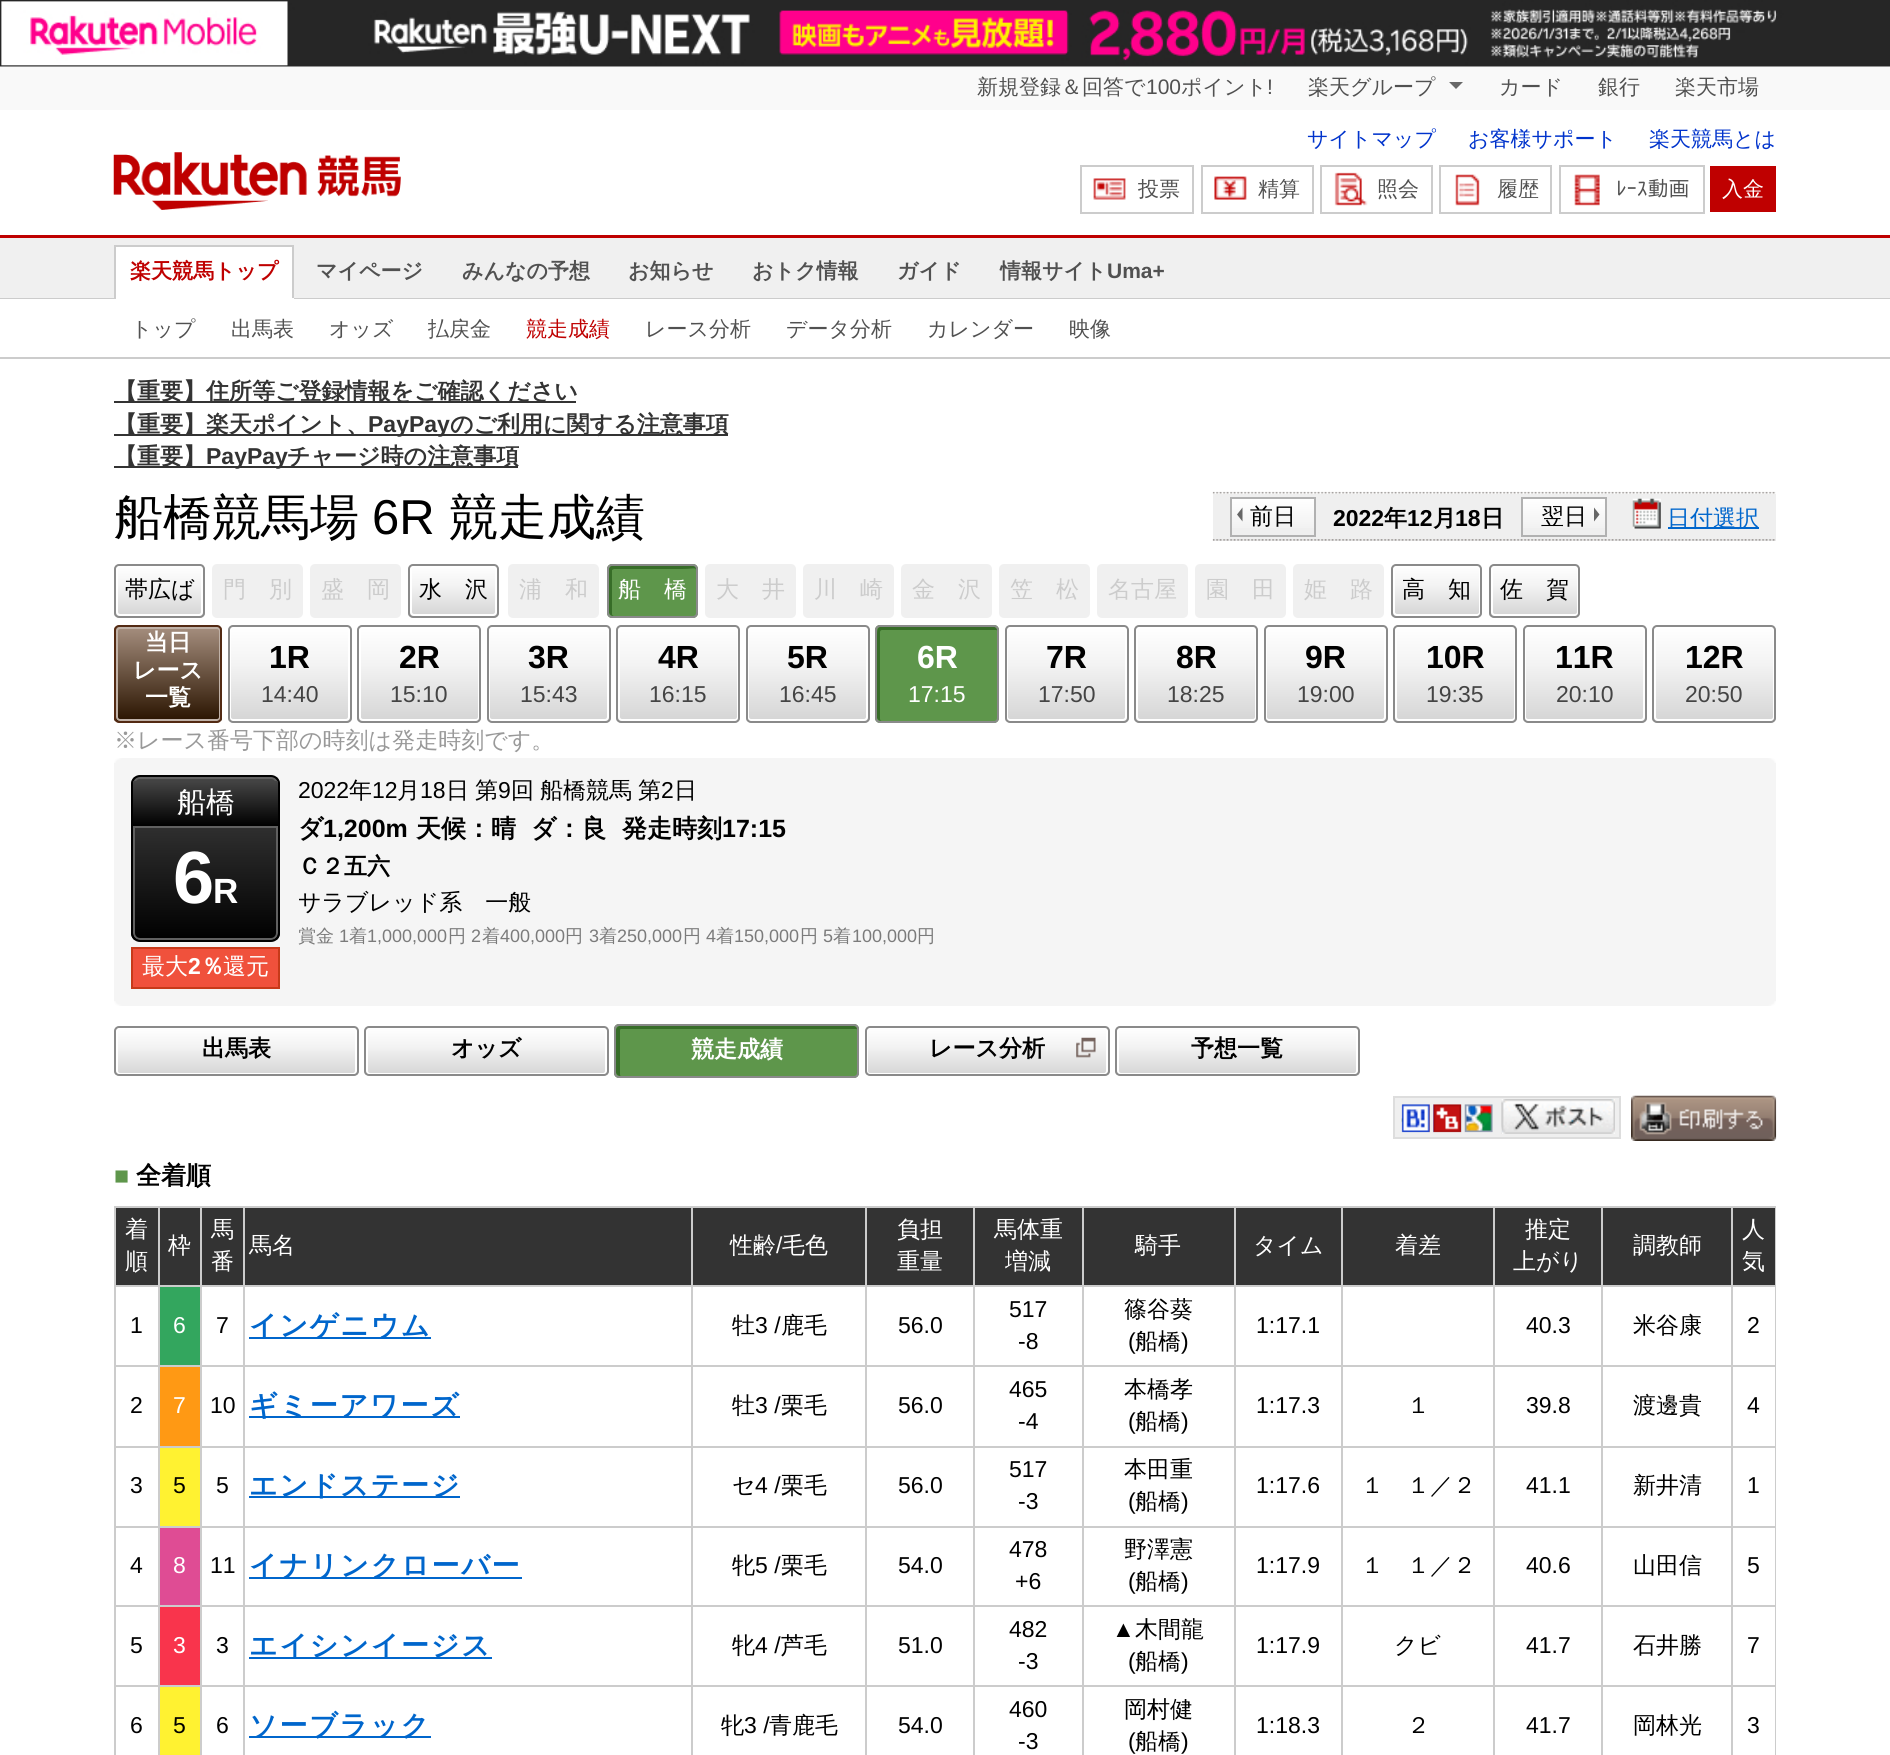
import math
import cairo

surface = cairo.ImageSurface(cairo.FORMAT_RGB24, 1890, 1755)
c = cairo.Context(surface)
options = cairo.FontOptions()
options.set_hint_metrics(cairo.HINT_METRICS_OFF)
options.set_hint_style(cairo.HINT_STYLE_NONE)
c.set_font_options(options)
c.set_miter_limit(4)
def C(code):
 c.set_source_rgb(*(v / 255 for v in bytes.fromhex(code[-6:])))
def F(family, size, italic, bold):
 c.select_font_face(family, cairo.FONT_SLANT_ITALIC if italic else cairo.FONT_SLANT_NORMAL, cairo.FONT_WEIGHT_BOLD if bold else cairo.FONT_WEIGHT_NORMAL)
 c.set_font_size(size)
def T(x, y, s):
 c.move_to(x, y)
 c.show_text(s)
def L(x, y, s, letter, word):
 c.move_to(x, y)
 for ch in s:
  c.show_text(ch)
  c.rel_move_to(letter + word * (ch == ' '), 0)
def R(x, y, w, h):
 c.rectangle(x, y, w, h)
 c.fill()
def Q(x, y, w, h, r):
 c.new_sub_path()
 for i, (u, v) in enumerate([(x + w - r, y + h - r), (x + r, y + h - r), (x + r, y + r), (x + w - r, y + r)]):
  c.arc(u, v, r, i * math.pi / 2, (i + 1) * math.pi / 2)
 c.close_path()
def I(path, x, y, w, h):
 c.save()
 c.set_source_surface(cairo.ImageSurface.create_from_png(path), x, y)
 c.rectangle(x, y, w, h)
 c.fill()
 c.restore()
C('ffffff')
c.paint()
I('1.png',0,0,1890,67)
C('f9f9f9')
R(0,67,1890,43)
F('WenQuanYi Zen Hei Medium',21,0,0)
C('515151')
T(977,94,'新規登録＆回答で')
F('Liberation Sans',21,0,0)
T(1146,94,'100')
F('WenQuanYi Zen Hei Medium',21,0,0)
T(1181,94,'ポイント')
F('Liberation Sans',21,0,0)
T(1267,94,'!')
F('WenQuanYi Zen Hei Medium',21,0,0)
T(1308,94,'楽天グループ')
C('686868')
c.new_path()
c.move_to(1449,82)
c.line_to(1463,82)
c.line_to(1456,89)
c.close_path()
c.fill()
C('515151')
T(1499,94,'カード')
T(1598,94,'銀行')
T(1675,94,'楽天市場')
C('bf0000')
R(0,235,1890,3)
I('2.png',113,152,288,58)
C('0033cc')
T(1307,146,'サイトマップ')
T(1468,146,'お客様サポート')
T(1649,146,'楽天競馬とは')
c.rectangle(1081,166,112,47)
C('cccccc')
c.stroke()
I('3.png',1093,178,33,22)
C('515151')
T(1138,196,'投票')
c.rectangle(1202,166,111,47)
C('cccccc')
c.stroke()
I('4.png',1214,176,33,24)
C('515151')
T(1258,196,'精算')
c.rectangle(1321,166,111,47)
C('cccccc')
c.stroke()
I('5.png',1334,172,34,34)
C('515151')
T(1377,196,'照会')
c.rectangle(1440,166,111,47)
C('cccccc')
c.stroke()
I('6.png',1455,174,25,32)
C('515151')
T(1497,196,'履歴')
c.rectangle(1560,166,144,47)
C('cccccc')
c.stroke()
I('7.png',1574,174,26,32)
F('IPAPGothic',21,0,0)
C('515151')
T(1616,196,'ﾚｰｽ動画')
C('bf0000')
R(1710,166,66,46)
F('WenQuanYi Zen Hei Medium',21,0,0)
C('ffffff')
T(1722,196,'入金')
C('f0f0f0')
R(0,238,1890,60)
C('cccccc')
R(0,298,1890,1)
C('ffffff')
R(116,247,176,51)
C('cccccc')
R(114,245,180,2)
R(292,245,2,54)
C('ffffff')
R(114,298,180,1)
C('cccccc')
R(114,245,2,54)
F('WenQuanYi Zen Hei',21,0,1)
C('bf0000')
T(130,278,'楽天競馬トップ')
C('515151')
T(316,278,'マイページ')
T(462,278,'みんなの予想')
T(628,278,'お知らせ')
T(752,278,'おトク情報')
T(897,278,'ガイド')
T(1000,278,'情報サイト')
F('Liberation Sans',21,0,1)
T(1107,278,'Uma+')
C('cccccc')
R(0,357,1890,2)
F('WenQuanYi Zen Hei Medium',21,0,0)
C('515151')
T(131,336,'トップ')
T(231,336,'出馬表')
T(329,336,'オッズ')
T(428,336,'払戻金')
C('bf0000')
T(526,336,'競走成績')
C('515151')
T(645,336,'レース分析')
T(786,336,'データ分析')
T(927,336,'カレンダー')
T(1069,336,'映像')
C('333333')
R(114,401,462,2)
F('WenQuanYi Zen Hei',23,0,1)
T(114,399,'【重要】住所等ご登録情報をご確認ください')
R(114,434,614,2)
T(114,432,'【重要】楽天ポイント、')
F('Liberation Sans',23,0,1)
T(368,432,'PayPay')
F('WenQuanYi Zen Hei',23,0,1)
T(450,432,'のご利用に関する注意事項')
R(114,466,404,2)
T(114,464,'【重要】')
F('Liberation Sans',23,0,1)
T(206,464,'PayPay')
F('WenQuanYi Zen Hei',23,0,1)
T(287,464,'チャージ時の注意事項')
F('WenQuanYi Zen Hei Medium',49,0,0)
C('000000')
T(114,534,'船橋競馬場')
F('Liberation Sans',49,0,0)
T(372,534,'6R')
F('WenQuanYi Zen Hei Medium',49,0,0)
T(449,534,'競走成績')
I('8.png',1212,491,564,3)
C('efefef')
R(1213,494,563,47)
I('9.png',1212,539,564,2)
gradient = cairo.LinearGradient(1273,499,1273,536)
gradient.add_color_stop_rgba(0,1,1,1,1)
gradient.add_color_stop_rgba(1,0.933,0.933,0.933,1)
c.set_source(gradient)
R(1232,499,82,29)
c.rectangle(1231,498,84,38)
C('b1b1b1')
c.stroke()
C('666666')
c.new_path()
c.move_to(1242.5,507.5)
c.line_to(1242.5,521.5)
c.line_to(1237,514.5)
c.close_path()
c.fill()
F('WenQuanYi Zen Hei Medium',23,0,0)
C('000000')
T(1250,524,'前日')
F('Liberation Sans',23,0,1)
T(1333,526,'2022')
F('WenQuanYi Zen Hei',23,0,1)
T(1384,526,'年')
F('Liberation Sans',23,0,1)
T(1407,526,'12')
F('WenQuanYi Zen Hei',23,0,1)
T(1433,526,'月')
F('Liberation Sans',23,0,1)
T(1455,526,'18')
F('WenQuanYi Zen Hei',23,0,1)
T(1481,526,'日')
gradient = cairo.LinearGradient(1564,499,1564,536)
gradient.add_color_stop_rgba(0,1,1,1,1)
gradient.add_color_stop_rgba(1,0.933,0.933,0.933,1)
c.set_source(gradient)
R(1523,499,82,29)
c.rectangle(1522,498,84,38)
C('b1b1b1')
c.stroke()
F('WenQuanYi Zen Hei Medium',23,0,0)
C('000000')
T(1541,524,'翌日')
C('666666')
c.new_path()
c.move_to(1594,521.5)
c.line_to(1594,507.5)
c.line_to(1599.5,514.5)
c.close_path()
c.fill()
I('10.png',1632,498,29,31)
C('0066cc')
R(1668,527,91,2)
T(1667,526,'日付選択')
c.save()
Q(114,564,91,54,5)
c.clip()
gradient = cairo.LinearGradient(159,565,159,616)
gradient.add_color_stop_rgba(0,1,1,1,1)
gradient.add_color_stop_rgba(.4,0.953,0.953,0.953,1)
gradient.add_color_stop_rgba(1,0.835,0.835,0.835,1)
c.set_source(gradient)
R(114,565,91,51)
c.restore()
Q(117,566,85,49,3)
C('ffffff')
c.stroke()
Q(115,565,89,52,4)
C('8a8a8a')
c.stroke()
C('000000')
T(125,597,'帯広ば')
C('f0f0f0')
Q(212,564,91,54,5)
c.fill()
C('cccccc')
T(223,597,'門　別')
C('f0f0f0')
Q(310,564,91,54,5)
c.fill()
C('cccccc')
T(321,597,'盛　岡')
c.save()
Q(408,564,91,54,5)
c.clip()
gradient = cairo.LinearGradient(453,565,453,616)
gradient.add_color_stop_rgba(0,1,1,1,1)
gradient.add_color_stop_rgba(.4,0.953,0.953,0.953,1)
gradient.add_color_stop_rgba(1,0.835,0.835,0.835,1)
c.set_source(gradient)
R(408,565,91,51)
c.restore()
Q(411,566,85,49,3)
C('ffffff')
c.stroke()
Q(409,565,89,52,4)
C('8a8a8a')
c.stroke()
C('000000')
T(419,597,'水　沢')
C('f0f0f0')
Q(508,564,91,54,5)
c.fill()
C('cccccc')
T(519,597,'浦　和')
C('5e964b')
Q(607,564,91,54,5)
c.fill()
C('376d28')
c.new_path()
c.move_to(614,569)
c.line_to(682,569)
c.curve_to(698,569,696,565,696,577)
c.line_to(696,615)
c.curve_to(697,614,697,613,697,612)
c.line_to(697,569)
c.curve_to(697,567,695,565,693,565)
c.line_to(613,565)
c.curve_to(611,565,609,567,609,569)
c.line_to(609,612)
c.curve_to(609,614,611,616,613,616)
c.line_to(614,616)
c.curve_to(613,616,612,615,612,614)
c.line_to(612,570)
c.close_path()
c.fill()
Q(608,565,89,52,4)
C('8a8a8a')
c.stroke()
C('ffffff')
T(618,597,'船　橋')
C('f0f0f0')
Q(705,564,91,54,5)
c.fill()
C('cccccc')
T(716,597,'大　井')
C('f0f0f0')
Q(803,564,91,54,5)
c.fill()
C('cccccc')
T(814,597,'川　崎')
C('f0f0f0')
Q(901,564,91,54,5)
c.fill()
C('cccccc')
T(912,597,'金　沢')
C('f0f0f0')
Q(999,564,91,54,5)
c.fill()
C('cccccc')
T(1010,597,'笠　松')
C('f0f0f0')
Q(1097,564,91,54,5)
c.fill()
C('cccccc')
T(1108,597,'名古屋')
C('f0f0f0')
Q(1195,564,91,54,5)
c.fill()
C('cccccc')
T(1206,597,'園　田')
C('f0f0f0')
Q(1293,564,91,54,5)
c.fill()
C('cccccc')
T(1304,597,'姫　路')
c.save()
Q(1391,564,91,54,5)
c.clip()
gradient = cairo.LinearGradient(1437,565,1437,616)
gradient.add_color_stop_rgba(0,1,1,1,1)
gradient.add_color_stop_rgba(.4,0.953,0.953,0.953,1)
gradient.add_color_stop_rgba(1,0.835,0.835,0.835,1)
c.set_source(gradient)
R(1391,565,91,51)
c.restore()
Q(1394,566,86,49,3)
C('ffffff')
c.stroke()
Q(1392,565,89,52,4)
C('8a8a8a')
c.stroke()
C('000000')
T(1402,597,'高　知')
c.save()
Q(1489,564,91,54,5)
c.clip()
gradient = cairo.LinearGradient(1535,565,1535,616)
gradient.add_color_stop_rgba(0,1,1,1,1)
gradient.add_color_stop_rgba(.4,0.953,0.953,0.953,1)
gradient.add_color_stop_rgba(1,0.835,0.835,0.835,1)
c.set_source(gradient)
R(1489,565,91,51)
c.restore()
Q(1492,566,86,49,3)
C('ffffff')
c.stroke()
Q(1490,565,89,52,4)
C('8a8a8a')
c.stroke()
C('000000')
T(1500,597,'佐　賀')
c.save()
Q(114,625,108,98,5)
c.clip()
gradient = cairo.LinearGradient(168,627,168,721)
gradient.add_color_stop_rgba(0,0.647,0.557,0.494,1)
gradient.add_color_stop_rgba(1,0.165,0.078,0,1)
c.set_source(gradient)
R(114,627,108,94)
c.restore()
Q(117,628,103,92,3)
C('c0b2a8')
c.stroke()
Q(115,626,106,96,4)
C('532a13')
c.stroke()
F('WenQuanYi Zen Hei',23,0,1)
C('ffffff')
T(145,650,'当日')
T(133,678,'レース')
T(145,705,'一覧')
c.save()
Q(228,625,124,98,5)
c.clip()
gradient = cairo.LinearGradient(290,627,290,721)
gradient.add_color_stop_rgba(0,1,1,1,1)
gradient.add_color_stop_rgba(.4,0.953,0.953,0.953,1)
gradient.add_color_stop_rgba(1,0.835,0.835,0.835,1)
c.set_source(gradient)
R(228,627,124,94)
c.restore()
Q(230,628,119,92,3)
c.stroke()
Q(229,626,122,96,4)
C('8a8a8a')
c.stroke()
F('Liberation Sans',32,0,1)
C('000000')
T(269,668,'1R')
F('Liberation Sans',23,0,0)
C('444444')
T(261,702,'14:40')
c.save()
Q(357,625,124,98,5)
c.clip()
gradient = cairo.LinearGradient(419,627,419,721)
gradient.add_color_stop_rgba(0,1,1,1,1)
gradient.add_color_stop_rgba(.4,0.953,0.953,0.953,1)
gradient.add_color_stop_rgba(1,0.835,0.835,0.835,1)
c.set_source(gradient)
R(357,627,124,94)
c.restore()
Q(360,628,119,92,3)
C('ffffff')
c.stroke()
Q(358,626,122,96,4)
C('8a8a8a')
c.stroke()
F('Liberation Sans',32,0,1)
C('000000')
T(399,668,'2R')
F('Liberation Sans',23,0,0)
C('444444')
T(390,702,'15:10')
c.save()
Q(487,625,124,98,5)
c.clip()
gradient = cairo.LinearGradient(549,627,549,721)
gradient.add_color_stop_rgba(0,1,1,1,1)
gradient.add_color_stop_rgba(.4,0.953,0.953,0.953,1)
gradient.add_color_stop_rgba(1,0.835,0.835,0.835,1)
c.set_source(gradient)
R(487,627,124,94)
c.restore()
Q(489,628,119,92,3)
C('ffffff')
c.stroke()
Q(488,626,122,96,4)
C('8a8a8a')
c.stroke()
F('Liberation Sans',32,0,1)
C('000000')
T(528,668,'3R')
F('Liberation Sans',23,0,0)
C('444444')
T(520,702,'15:43')
c.save()
Q(616,625,124,98,5)
c.clip()
gradient = cairo.LinearGradient(678,627,678,721)
gradient.add_color_stop_rgba(0,1,1,1,1)
gradient.add_color_stop_rgba(.4,0.953,0.953,0.953,1)
gradient.add_color_stop_rgba(1,0.835,0.835,0.835,1)
c.set_source(gradient)
R(616,627,124,94)
c.restore()
Q(619,628,119,92,3)
C('ffffff')
c.stroke()
Q(617,626,122,96,4)
C('8a8a8a')
c.stroke()
F('Liberation Sans',32,0,1)
C('000000')
T(658,668,'4R')
F('Liberation Sans',23,0,0)
C('444444')
T(649,702,'16:15')
c.save()
Q(746,625,124,98,5)
c.clip()
gradient = cairo.LinearGradient(808,627,808,721)
gradient.add_color_stop_rgba(0,1,1,1,1)
gradient.add_color_stop_rgba(.4,0.953,0.953,0.953,1)
gradient.add_color_stop_rgba(1,0.835,0.835,0.835,1)
c.set_source(gradient)
R(746,627,124,94)
c.restore()
Q(748,628,119,92,3)
C('ffffff')
c.stroke()
Q(747,626,122,96,4)
C('8a8a8a')
c.stroke()
F('Liberation Sans',32,0,1)
C('000000')
T(787,668,'5R')
F('Liberation Sans',23,0,0)
C('444444')
T(779,702,'16:45')
C('5e964b')
Q(875,625,124,98,5)
c.fill()
C('376d28')
c.new_path()
c.move_to(882,630)
c.line_to(996,630)
c.curve_to(997,630,998,631,998,632)
c.curve_to(998,622,978,627,975,627)
c.line_to(900,627)
c.curve_to(875,627,877,622,877,645)
c.line_to(877,703)
c.curve_to(877,707,873,721,882,721)
c.curve_to(881,721,880,720,880,719)
c.line_to(880,632)
c.curve_to(880,631,881,630,882,630)
c.close_path()
c.fill()
Q(876,626,122,96,4)
C('8a8a8a')
c.stroke()
F('Liberation Sans',32,0,1)
C('ffffff')
T(917,668,'6R')
F('Liberation Sans',23,0,0)
T(908,702,'17:15')
c.save()
Q(1005,625,124,98,5)
c.clip()
gradient = cairo.LinearGradient(1067,627,1067,721)
gradient.add_color_stop_rgba(0,1,1,1,1)
gradient.add_color_stop_rgba(.4,0.953,0.953,0.953,1)
gradient.add_color_stop_rgba(1,0.835,0.835,0.835,1)
c.set_source(gradient)
R(1005,627,124,94)
c.restore()
Q(1007,628,119,92,3)
c.stroke()
Q(1006,626,122,96,4)
C('8a8a8a')
c.stroke()
F('Liberation Sans',32,0,1)
C('000000')
T(1046,668,'7R')
F('Liberation Sans',23,0,0)
C('444444')
T(1038,702,'17:50')
c.save()
Q(1134,625,124,98,5)
c.clip()
gradient = cairo.LinearGradient(1196,627,1196,721)
gradient.add_color_stop_rgba(0,1,1,1,1)
gradient.add_color_stop_rgba(.4,0.953,0.953,0.953,1)
gradient.add_color_stop_rgba(1,0.835,0.835,0.835,1)
c.set_source(gradient)
R(1134,627,124,94)
c.restore()
Q(1137,628,119,92,3)
C('ffffff')
c.stroke()
Q(1135,626,122,96,4)
C('8a8a8a')
c.stroke()
F('Liberation Sans',32,0,1)
C('000000')
T(1176,668,'8R')
F('Liberation Sans',23,0,0)
C('444444')
T(1167,702,'18:25')
c.save()
Q(1264,625,124,98,5)
c.clip()
gradient = cairo.LinearGradient(1326,627,1326,721)
gradient.add_color_stop_rgba(0,1,1,1,1)
gradient.add_color_stop_rgba(.4,0.953,0.953,0.953,1)
gradient.add_color_stop_rgba(1,0.835,0.835,0.835,1)
c.set_source(gradient)
R(1264,627,124,94)
c.restore()
Q(1266,628,119,92,3)
C('ffffff')
c.stroke()
Q(1265,626,122,96,4)
C('8a8a8a')
c.stroke()
F('Liberation Sans',32,0,1)
C('000000')
T(1305,668,'9R')
F('Liberation Sans',23,0,0)
C('444444')
T(1297,702,'19:00')
c.save()
Q(1393,625,124,98,5)
c.clip()
gradient = cairo.LinearGradient(1455,627,1455,721)
gradient.add_color_stop_rgba(0,1,1,1,1)
gradient.add_color_stop_rgba(.4,0.953,0.953,0.953,1)
gradient.add_color_stop_rgba(1,0.835,0.835,0.835,1)
c.set_source(gradient)
R(1393,627,124,94)
c.restore()
Q(1396,628,119,92,3)
C('ffffff')
c.stroke()
Q(1394,626,122,96,4)
C('8a8a8a')
c.stroke()
F('Liberation Sans',32,0,1)
C('000000')
T(1426,668,'10R')
F('Liberation Sans',23,0,0)
C('444444')
T(1426,702,'19:35')
c.save()
Q(1523,625,124,98,5)
c.clip()
gradient = cairo.LinearGradient(1585,627,1585,721)
gradient.add_color_stop_rgba(0,1,1,1,1)
gradient.add_color_stop_rgba(.4,0.953,0.953,0.953,1)
gradient.add_color_stop_rgba(1,0.835,0.835,0.835,1)
c.set_source(gradient)
R(1523,627,124,94)
c.restore()
Q(1525,628,119,92,3)
C('ffffff')
c.stroke()
Q(1524,626,122,96,4)
C('8a8a8a')
c.stroke()
F('Liberation Sans',32,0,1)
C('000000')
T(1555,668,'11R')
F('Liberation Sans',23,0,0)
C('444444')
T(1556,702,'20:10')
c.save()
Q(1652,625,124,98,5)
c.clip()
gradient = cairo.LinearGradient(1714,627,1714,721)
gradient.add_color_stop_rgba(0,1,1,1,1)
gradient.add_color_stop_rgba(.4,0.953,0.953,0.953,1)
gradient.add_color_stop_rgba(1,0.835,0.835,0.835,1)
c.set_source(gradient)
R(1652,627,124,94)
c.restore()
Q(1655,628,119,92,3)
C('ffffff')
c.stroke()
Q(1653,626,122,96,4)
C('8a8a8a')
c.stroke()
F('Liberation Sans',32,0,1)
C('000000')
T(1685,668,'12R')
F('Liberation Sans',23,0,0)
C('444444')
T(1685,702,'20:50')
F('WenQuanYi Zen Hei Medium',23,0,0)
C('999999')
T(114,748,'※レース番号下部の時刻は発走時刻です。')
C('f5f5f5')
R(114,763,1662,238)
I('11.png',114,758,1662,5)
I('12.png',114,1001,1662,5)
c.save()
Q(131,775,149,167,9)
c.clip()
gradient = cairo.LinearGradient(206,777,206,940)
gradient.add_color_stop_rgba(0,0.267,0.267,0.267,1)
gradient.add_color_stop_rgba(1,0,0,0,1)
c.set_source(gradient)
R(131,777,149,163)
c.restore()
Q(134,778,143,161,6)
C('606060')
c.stroke()
Q(132,776,147,165,8)
C('000000')
c.stroke()
gradient = cairo.LinearGradient(206,781,206,826)
gradient.add_color_stop_rgba(0,0.267,0.267,0.267,1)
gradient.add_color_stop_rgba(1,0,0,0,1)
c.set_source(gradient)
R(133,781,145,45)
C('606060')
R(133,826,145,2)
F('WenQuanYi Zen Hei Medium',29,0,0)
C('ffffff')
T(177,812,'船橋')
F('Liberation Sans',74,0,1)
T(173,903,'6')
F('Liberation Sans',35,0,1)
T(213,903,'R')
C('f0513c')
c.rectangle(132,948,147,40)
c.fill_preserve()
C('c73a1a')
c.stroke()
F('WenQuanYi Zen Hei Medium',23,0,0)
C('ffffff')
T(142,974,'最大')
F('Liberation Sans',23,0,1)
T(188,974,'2')
F('WenQuanYi Zen Hei',23,0,1)
T(201,974,'％')
F('WenQuanYi Zen Hei Medium',23,0,0)
T(223,974,'還元')
F('Liberation Sans',23,0,0)
C('000000')
T(298,798,'2022')
F('WenQuanYi Zen Hei Medium',23,0,0)
T(349,798,'年')
F('Liberation Sans',23,0,0)
T(372,798,'12')
F('WenQuanYi Zen Hei Medium',23,0,0)
T(397,798,'月')
F('Liberation Sans',23,0,0)
T(420,798,'18')
F('WenQuanYi Zen Hei Medium',23,0,0)
T(446,798,'日')
T(475,798,'第')
F('Liberation Sans',23,0,0)
T(498,798,'9')
F('WenQuanYi Zen Hei Medium',23,0,0)
T(511,798,'回')
T(540,798,'船橋競馬')
T(638,798,'第')
F('Liberation Sans',23,0,0)
T(661,798,'2')
F('WenQuanYi Zen Hei Medium',23,0,0)
T(674,798,'日')
F('WenQuanYi Zen Hei',25,0,1)
T(298,837,'ダ')
F('Liberation Sans',25,0,1)
T(323,837,'1,200m')
F('WenQuanYi Zen Hei',25,0,1)
T(416,837,'天候：晴')
T(531,837,'ダ：良')
T(622,837,'発走時刻')
F('Liberation Sans',25,0,1)
T(722,837,'17:15')
F('WenQuanYi Zen Hei',23,0,1)
T(298,874,'Ｃ２五六')
F('WenQuanYi Zen Hei Medium',23,0,0)
T(298,910,'サラブレッド系　一般')
F('WenQuanYi Zen Hei Medium',18,0,0)
C('7b7b7b')
T(298,942,'賞金')
F('Liberation Sans',18,0,0)
T(339,942,'1')
F('WenQuanYi Zen Hei Medium',18,0,0)
T(349,942,'着')
F('Liberation Sans',18,0,0)
T(367,942,'1,000,000')
F('WenQuanYi Zen Hei Medium',18,0,0)
T(448,942,'円')
F('Liberation Sans',18,0,0)
T(471,942,'2')
F('WenQuanYi Zen Hei Medium',18,0,0)
T(482,942,'着')
F('Liberation Sans',18,0,0)
T(500,942,'400,000')
F('WenQuanYi Zen Hei Medium',18,0,0)
T(565,942,'円')
F('Liberation Sans',18,0,0)
T(589,942,'3')
F('WenQuanYi Zen Hei Medium',18,0,0)
T(599,942,'着')
F('Liberation Sans',18,0,0)
T(617,942,'250,000')
F('WenQuanYi Zen Hei Medium',18,0,0)
T(683,942,'円')
F('Liberation Sans',18,0,0)
T(706,942,'4')
F('WenQuanYi Zen Hei Medium',18,0,0)
T(716,942,'着')
F('Liberation Sans',18,0,0)
T(734,942,'150,000')
F('WenQuanYi Zen Hei Medium',18,0,0)
T(800,942,'円')
F('Liberation Sans',18,0,0)
T(823,942,'5')
F('WenQuanYi Zen Hei Medium',18,0,0)
T(833,942,'着')
F('Liberation Sans',18,0,0)
T(852,942,'100,000')
F('WenQuanYi Zen Hei Medium',18,0,0)
T(917,942,'円')
c.save()
Q(114,1026,245,50,5)
c.clip()
gradient = cairo.LinearGradient(236,1027,236,1075)
gradient.add_color_stop_rgba(0,1,1,1,1)
gradient.add_color_stop_rgba(.4,0.953,0.953,0.953,1)
gradient.add_color_stop_rgba(1,0.835,0.835,0.835,1)
c.set_source(gradient)
R(114,1027,245,48)
c.restore()
Q(117,1028,239,46,3)
C('ffffff')
c.stroke()
Q(115,1027,243,48,4)
C('8a8a8a')
c.stroke()
F('WenQuanYi Zen Hei',23,0,1)
C('000000')
T(202,1056,'出馬表')
c.save()
Q(364,1026,245,50,5)
c.clip()
gradient = cairo.LinearGradient(487,1027,487,1075)
gradient.add_color_stop_rgba(0,1,1,1,1)
gradient.add_color_stop_rgba(.4,0.953,0.953,0.953,1)
gradient.add_color_stop_rgba(1,0.835,0.835,0.835,1)
c.set_source(gradient)
R(364,1027,245,48)
c.restore()
Q(367,1028,239,46,3)
C('ffffff')
c.stroke()
Q(365,1027,243,48,4)
C('8a8a8a')
c.stroke()
C('000000')
T(451,1056,'オッズ')
C('5e964b')
Q(614,1024,245,54,5)
c.fill()
C('376d28')
c.new_path()
c.move_to(621,1029)
c.line_to(856,1029)
c.curve_to(857,1029,858,1030,858,1031)
c.line_to(858,1030)
c.curve_to(858,1028,856,1026,854,1026)
c.line_to(620,1026)
c.curve_to(618,1026,616,1028,616,1030)
c.line_to(616,1072)
c.curve_to(616,1074,618,1076,620,1076)
c.line_to(621,1076)
c.curve_to(620,1076,620,1075,620,1074)
c.line_to(620,1031)
c.curve_to(620,1030,620,1029,621,1029)
c.close_path()
c.fill()
Q(615,1025,243,52,4)
C('8a8a8a')
c.stroke()
C('ffffff')
T(691,1057,'競走成績')
c.save()
Q(865,1026,245,50,5)
c.clip()
gradient = cairo.LinearGradient(987,1027,987,1075)
gradient.add_color_stop_rgba(0,1,1,1,1)
gradient.add_color_stop_rgba(.4,0.953,0.953,0.953,1)
gradient.add_color_stop_rgba(1,0.835,0.835,0.835,1)
c.set_source(gradient)
R(865,1027,245,48)
c.restore()
Q(867,1028,240,46,3)
c.stroke()
Q(866,1027,243,48,4)
C('8a8a8a')
c.stroke()
C('000000')
T(929,1056,'レース分析')
I('13.png',1076,1037,20,21)
c.save()
Q(1115,1026,245,50,5)
c.clip()
gradient = cairo.LinearGradient(1237,1027,1237,1075)
gradient.add_color_stop_rgba(0,1,1,1,1)
gradient.add_color_stop_rgba(.4,0.953,0.953,0.953,1)
gradient.add_color_stop_rgba(1,0.835,0.835,0.835,1)
c.set_source(gradient)
R(1115,1027,245,48)
c.restore()
Q(1118,1028,239,46,3)
C('ffffff')
c.stroke()
Q(1116,1027,243,48,4)
C('8a8a8a')
c.stroke()
C('000000')
T(1191,1056,'予想一覧')
C('efefef')
c.rectangle(1394,1097,226,41)
c.fill_preserve()
C('dddddd')
c.stroke()
I('14.png',1401,1104,29,29)
I('15.png',1433,1104,29,29)
I('16.png',1464,1104,29,29)
I('17.png',1501,1099,114,35)
I('18.png',1631,1095,146,46)
F('Liberation Sans',25,0,1)
C('5e964b')
T(114,1184,'■')
F('WenQuanYi Zen Hei',25,0,1)
C('000000')
T(136,1184,'全着順')
C('cccccc')
R(1775,1206,1,549)
C('333333')
R(116,1208,42,77)
C('cccccc')
R(114,1206,1661,2)
R(114,1206,2,79)
F('WenQuanYi Zen Hei Medium',23,0,0)
C('ffffff')
T(125,1237,'着')
T(125,1269,'順')
C('333333')
R(160,1208,40,77)
C('cccccc')
R(158,1206,2,79)
C('ffffff')
T(168,1253,'枠')
C('333333')
R(202,1208,41,77)
C('cccccc')
R(200,1206,2,79)
C('ffffff')
T(211,1237,'馬')
T(211,1269,'番')
C('333333')
R(245,1208,446,77)
C('cccccc')
R(243,1206,2,79)
C('ffffff')
T(249,1253,'馬名')
C('333333')
R(693,1208,172,77)
C('cccccc')
R(691,1206,2,79)
C('ffffff')
T(730,1253,'性齢')
F('Liberation Sans',23,0,0)
T(776,1253,'/')
F('WenQuanYi Zen Hei Medium',23,0,0)
T(782,1253,'毛色')
C('333333')
R(867,1208,106,77)
C('cccccc')
R(865,1206,2,79)
C('ffffff')
T(897,1237,'負担')
T(897,1269,'重量')
C('333333')
R(975,1208,107,77)
C('cccccc')
R(973,1206,2,79)
C('ffffff')
T(994,1237,'馬体重')
T(1005,1269,'増減')
C('333333')
R(1084,1208,150,77)
C('cccccc')
R(1082,1206,2,79)
C('ffffff')
T(1135,1253,'騎手')
C('333333')
R(1236,1208,105,77)
C('cccccc')
R(1234,1206,2,79)
C('ffffff')
T(1253,1253,'タイム')
C('333333')
R(1343,1208,150,77)
C('cccccc')
R(1341,1206,2,79)
C('ffffff')
T(1395,1253,'着差')
C('333333')
R(1495,1208,106,77)
C('cccccc')
R(1493,1206,2,79)
C('ffffff')
T(1525,1237,'推定')
T(1513,1269,'上がり')
C('333333')
R(1603,1208,128,77)
C('cccccc')
R(1601,1206,2,79)
C('ffffff')
T(1633,1253,'調教師')
C('333333')
R(1733,1208,42,77)
C('cccccc')
R(1731,1206,2,79)
C('ffffff')
T(1742,1237,'人')
T(1742,1269,'気')
C('cccccc')
R(114,1285,1661,2)
R(114,1285,2,80)
F('Liberation Sans',23,0,0)
C('000000')
T(130,1333,'1')
C('33a65e')
R(160,1287,40,78)
C('cccccc')
R(158,1285,2,80)
C('ffffff')
T(173,1333,'6')
C('cccccc')
R(200,1285,2,80)
C('000000')
T(216,1333,'7')
C('cccccc')
R(243,1285,2,80)
C('0066cc')
R(249,1337,182,2)
F('WenQuanYi Zen Hei',28,0,1)
L(249,1335,'インゲニウム',1.75,0)
C('cccccc')
R(691,1285,2,80)
F('WenQuanYi Zen Hei Medium',23,0,0)
C('000000')
T(732,1333,'牡')
F('Liberation Sans',23,0,0)
T(755,1333,'3 /')
F('WenQuanYi Zen Hei Medium',23,0,0)
T(781,1333,'鹿毛')
C('cccccc')
R(865,1285,2,80)
F('Liberation Sans',23,0,0)
C('000000')
T(898,1333,'56.0')
C('cccccc')
R(973,1285,2,80)
C('000000')
T(1009,1317,'517')
T(1018,1349,'-8')
C('cccccc')
R(1082,1285,2,80)
F('WenQuanYi Zen Hei Medium',23,0,0)
C('000000')
T(1124,1317,'篠谷葵')
F('Liberation Sans',23,0,0)
T(1128,1349,'(')
F('WenQuanYi Zen Hei Medium',23,0,0)
T(1135,1349,'船橋')
F('Liberation Sans',23,0,0)
T(1181,1349,')')
C('cccccc')
R(1234,1285,2,80)
C('000000')
T(1256,1333,'1:17.1')
C('cccccc')
R(1341,1285,2,80)
R(1493,1285,2,80)
C('000000')
T(1526,1333,'40.3')
C('cccccc')
R(1601,1285,2,80)
F('WenQuanYi Zen Hei Medium',23,0,0)
C('000000')
T(1633,1333,'米谷康')
C('cccccc')
R(1731,1285,2,80)
F('Liberation Sans',23,0,0)
C('000000')
T(1747,1333,'2')
C('cccccc')
R(114,1365,1661,2)
R(114,1365,2,81)
C('000000')
T(130,1413,'2')
C('ff9914')
R(160,1367,40,79)
C('cccccc')
R(158,1365,2,81)
C('ffffff')
T(173,1413,'7')
C('cccccc')
R(200,1365,2,81)
C('000000')
T(210,1413,'10')
C('cccccc')
R(243,1365,2,81)
C('0066cc')
R(249,1416,211,2)
F('WenQuanYi Zen Hei',28,0,1)
L(249,1415,'ギミーアワーズ',1.75,0)
C('cccccc')
R(691,1365,2,81)
F('WenQuanYi Zen Hei Medium',23,0,0)
C('000000')
T(732,1413,'牡')
F('Liberation Sans',23,0,0)
T(755,1413,'3 /')
F('WenQuanYi Zen Hei Medium',23,0,0)
T(781,1413,'栗毛')
C('cccccc')
R(865,1365,2,81)
F('Liberation Sans',23,0,0)
C('000000')
T(898,1413,'56.0')
C('cccccc')
R(973,1365,2,81)
C('000000')
T(1009,1397,'465')
T(1018,1429,'-4')
C('cccccc')
R(1082,1365,2,81)
F('WenQuanYi Zen Hei Medium',23,0,0)
C('000000')
T(1124,1397,'本橋孝')
F('Liberation Sans',23,0,0)
T(1128,1429,'(')
F('WenQuanYi Zen Hei Medium',23,0,0)
T(1135,1429,'船橋')
F('Liberation Sans',23,0,0)
T(1181,1429,')')
C('cccccc')
R(1234,1365,2,81)
C('000000')
T(1256,1413,'1:17.3')
C('cccccc')
R(1341,1365,2,81)
F('WenQuanYi Zen Hei Medium',23,0,0)
C('000000')
T(1407,1413,'１')
C('cccccc')
R(1493,1365,2,81)
F('Liberation Sans',23,0,0)
C('000000')
T(1526,1413,'39.8')
C('cccccc')
R(1601,1365,2,81)
F('WenQuanYi Zen Hei Medium',23,0,0)
C('000000')
T(1633,1413,'渡邊貴')
C('cccccc')
R(1731,1365,2,81)
F('Liberation Sans',23,0,0)
C('000000')
T(1747,1413,'4')
C('cccccc')
R(114,1446,1661,2)
R(114,1446,2,80)
C('000000')
T(130,1493,'3')
C('fff231')
R(160,1448,40,78)
C('cccccc')
R(158,1446,2,80)
C('000000')
T(173,1493,'5')
C('cccccc')
R(200,1446,2,80)
C('000000')
T(216,1493,'5')
C('cccccc')
R(243,1446,2,80)
C('0066cc')
R(249,1496,211,2)
F('WenQuanYi Zen Hei',28,0,1)
L(249,1495,'エンドステージ',1.75,0)
C('cccccc')
R(691,1446,2,80)
F('WenQuanYi Zen Hei Medium',23,0,0)
C('000000')
T(732,1493,'セ')
F('Liberation Sans',23,0,0)
T(755,1493,'4 /')
F('WenQuanYi Zen Hei Medium',23,0,0)
T(781,1493,'栗毛')
C('cccccc')
R(865,1446,2,80)
F('Liberation Sans',23,0,0)
C('000000')
T(898,1493,'56.0')
C('cccccc')
R(973,1446,2,80)
C('000000')
T(1009,1477,'517')
T(1018,1509,'-3')
C('cccccc')
R(1082,1446,2,80)
F('WenQuanYi Zen Hei Medium',23,0,0)
C('000000')
T(1124,1477,'本田重')
F('Liberation Sans',23,0,0)
T(1128,1509,'(')
F('WenQuanYi Zen Hei Medium',23,0,0)
T(1135,1509,'船橋')
F('Liberation Sans',23,0,0)
T(1181,1509,')')
C('cccccc')
R(1234,1446,2,80)
C('000000')
T(1256,1493,'1:17.6')
C('cccccc')
R(1341,1446,2,80)
F('WenQuanYi Zen Hei Medium',23,0,0)
C('000000')
T(1361,1493,'１　１／２')
C('cccccc')
R(1493,1446,2,80)
F('Liberation Sans',23,0,0)
C('000000')
T(1526,1493,'41.1')
C('cccccc')
R(1601,1446,2,80)
F('WenQuanYi Zen Hei Medium',23,0,0)
C('000000')
T(1633,1493,'新井清')
C('cccccc')
R(1731,1446,2,80)
F('Liberation Sans',23,0,0)
C('000000')
T(1747,1493,'1')
C('cccccc')
R(114,1526,1661,2)
R(114,1526,2,79)
C('000000')
T(130,1573,'4')
C('df4c94')
R(160,1528,40,77)
C('cccccc')
R(158,1526,2,79)
C('ffffff')
T(173,1573,'8')
C('cccccc')
R(200,1526,2,79)
C('000000')
T(210,1573,'11')
C('cccccc')
R(243,1526,2,79)
C('0066cc')
R(249,1577,273,2)
F('WenQuanYi Zen Hei',28,0,1)
L(249,1575,'イナリンクローバー',1.75,0)
C('cccccc')
R(691,1526,2,79)
F('WenQuanYi Zen Hei Medium',23,0,0)
C('000000')
T(732,1573,'牝')
F('Liberation Sans',23,0,0)
T(755,1573,'5 /')
F('WenQuanYi Zen Hei Medium',23,0,0)
T(781,1573,'栗毛')
C('cccccc')
R(865,1526,2,79)
F('Liberation Sans',23,0,0)
C('000000')
T(898,1573,'54.0')
C('cccccc')
R(973,1526,2,79)
C('000000')
T(1009,1557,'478')
T(1015,1589,'+6')
C('cccccc')
R(1082,1526,2,79)
F('WenQuanYi Zen Hei Medium',23,0,0)
C('000000')
T(1124,1557,'野澤憲')
F('Liberation Sans',23,0,0)
T(1128,1589,'(')
F('WenQuanYi Zen Hei Medium',23,0,0)
T(1135,1589,'船橋')
F('Liberation Sans',23,0,0)
T(1181,1589,')')
C('cccccc')
R(1234,1526,2,79)
C('000000')
T(1256,1573,'1:17.9')
C('cccccc')
R(1341,1526,2,79)
F('WenQuanYi Zen Hei Medium',23,0,0)
C('000000')
T(1361,1573,'１　１／２')
C('cccccc')
R(1493,1526,2,79)
F('Liberation Sans',23,0,0)
C('000000')
T(1526,1573,'40.6')
C('cccccc')
R(1601,1526,2,79)
F('WenQuanYi Zen Hei Medium',23,0,0)
C('000000')
T(1633,1573,'山田信')
C('cccccc')
R(1731,1526,2,79)
F('Liberation Sans',23,0,0)
C('000000')
T(1747,1573,'5')
C('cccccc')
R(114,1605,1661,2)
R(114,1605,2,80)
C('000000')
T(130,1653,'5')
C('f9344c')
R(160,1607,40,78)
C('cccccc')
R(158,1605,2,80)
C('ffffff')
T(173,1653,'3')
C('cccccc')
R(200,1605,2,80)
C('000000')
T(216,1653,'3')
C('cccccc')
R(243,1605,2,80)
C('0066cc')
R(249,1657,243,2)
F('WenQuanYi Zen Hei',28,0,1)
L(249,1655,'エイシンイージス',1.75,0)
C('cccccc')
R(691,1605,2,80)
F('WenQuanYi Zen Hei Medium',23,0,0)
C('000000')
T(732,1653,'牝')
F('Liberation Sans',23,0,0)
T(755,1653,'4 /')
F('WenQuanYi Zen Hei Medium',23,0,0)
T(781,1653,'芦毛')
C('cccccc')
R(865,1605,2,80)
F('Liberation Sans',23,0,0)
C('000000')
T(898,1653,'51.0')
C('cccccc')
R(973,1605,2,80)
C('000000')
T(1009,1637,'482')
T(1018,1669,'-3')
C('cccccc')
R(1082,1605,2,80)
C('000000')
T(1112,1637,'▲')
F('WenQuanYi Zen Hei Medium',23,0,0)
T(1135,1637,'木間龍')
F('Liberation Sans',23,0,0)
T(1128,1669,'(')
F('WenQuanYi Zen Hei Medium',23,0,0)
T(1135,1669,'船橋')
F('Liberation Sans',23,0,0)
T(1181,1669,')')
C('cccccc')
R(1234,1605,2,80)
C('000000')
T(1256,1653,'1:17.9')
C('cccccc')
R(1341,1605,2,80)
F('WenQuanYi Zen Hei Medium',23,0,0)
C('000000')
T(1394,1653,'クビ')
C('cccccc')
R(1493,1605,2,80)
F('Liberation Sans',23,0,0)
C('000000')
T(1526,1653,'41.7')
C('cccccc')
R(1601,1605,2,80)
F('WenQuanYi Zen Hei Medium',23,0,0)
C('000000')
T(1633,1653,'石井勝')
C('cccccc')
R(1731,1605,2,80)
F('Liberation Sans',23,0,0)
C('000000')
T(1747,1653,'7')
C('cccccc')
R(114,1685,1661,2)
R(114,1685,2,70)
C('000000')
T(130,1733,'6')
C('fff231')
R(160,1687,40,68)
C('cccccc')
R(158,1685,2,70)
C('000000')
T(173,1733,'5')
C('cccccc')
R(200,1685,2,70)
C('000000')
T(216,1733,'6')
C('cccccc')
R(243,1685,2,70)
C('0066cc')
R(249,1736,182,2)
F('WenQuanYi Zen Hei',28,0,1)
L(249,1735,'ソーブラック',1.75,0)
C('cccccc')
R(691,1685,2,70)
F('WenQuanYi Zen Hei Medium',23,0,0)
C('000000')
T(721,1733,'牝')
F('Liberation Sans',23,0,0)
T(744,1733,'3 /')
F('WenQuanYi Zen Hei Medium',23,0,0)
T(769,1733,'青鹿毛')
C('cccccc')
R(865,1685,2,70)
F('Liberation Sans',23,0,0)
C('000000')
T(898,1733,'54.0')
C('cccccc')
R(973,1685,2,70)
C('000000')
T(1009,1717,'460')
T(1018,1749,'-3')
C('cccccc')
R(1082,1685,2,70)
F('WenQuanYi Zen Hei Medium',23,0,0)
C('000000')
T(1124,1717,'岡村健')
F('Liberation Sans',23,0,0)
T(1128,1749,'(')
F('WenQuanYi Zen Hei Medium',23,0,0)
T(1135,1749,'船橋')
F('Liberation Sans',23,0,0)
T(1181,1749,')')
C('cccccc')
R(1234,1685,2,70)
C('000000')
T(1256,1733,'1:18.3')
C('cccccc')
R(1341,1685,2,70)
F('WenQuanYi Zen Hei Medium',23,0,0)
C('000000')
T(1407,1733,'２')
C('cccccc')
R(1493,1685,2,70)
F('Liberation Sans',23,0,0)
C('000000')
T(1526,1733,'41.7')
C('cccccc')
R(1601,1685,2,70)
F('WenQuanYi Zen Hei Medium',23,0,0)
C('000000')
T(1633,1733,'岡林光')
C('cccccc')
R(1731,1685,2,70)
F('Liberation Sans',23,0,0)
C('000000')
T(1747,1733,'3')
surface.write_to_png('o.png')
